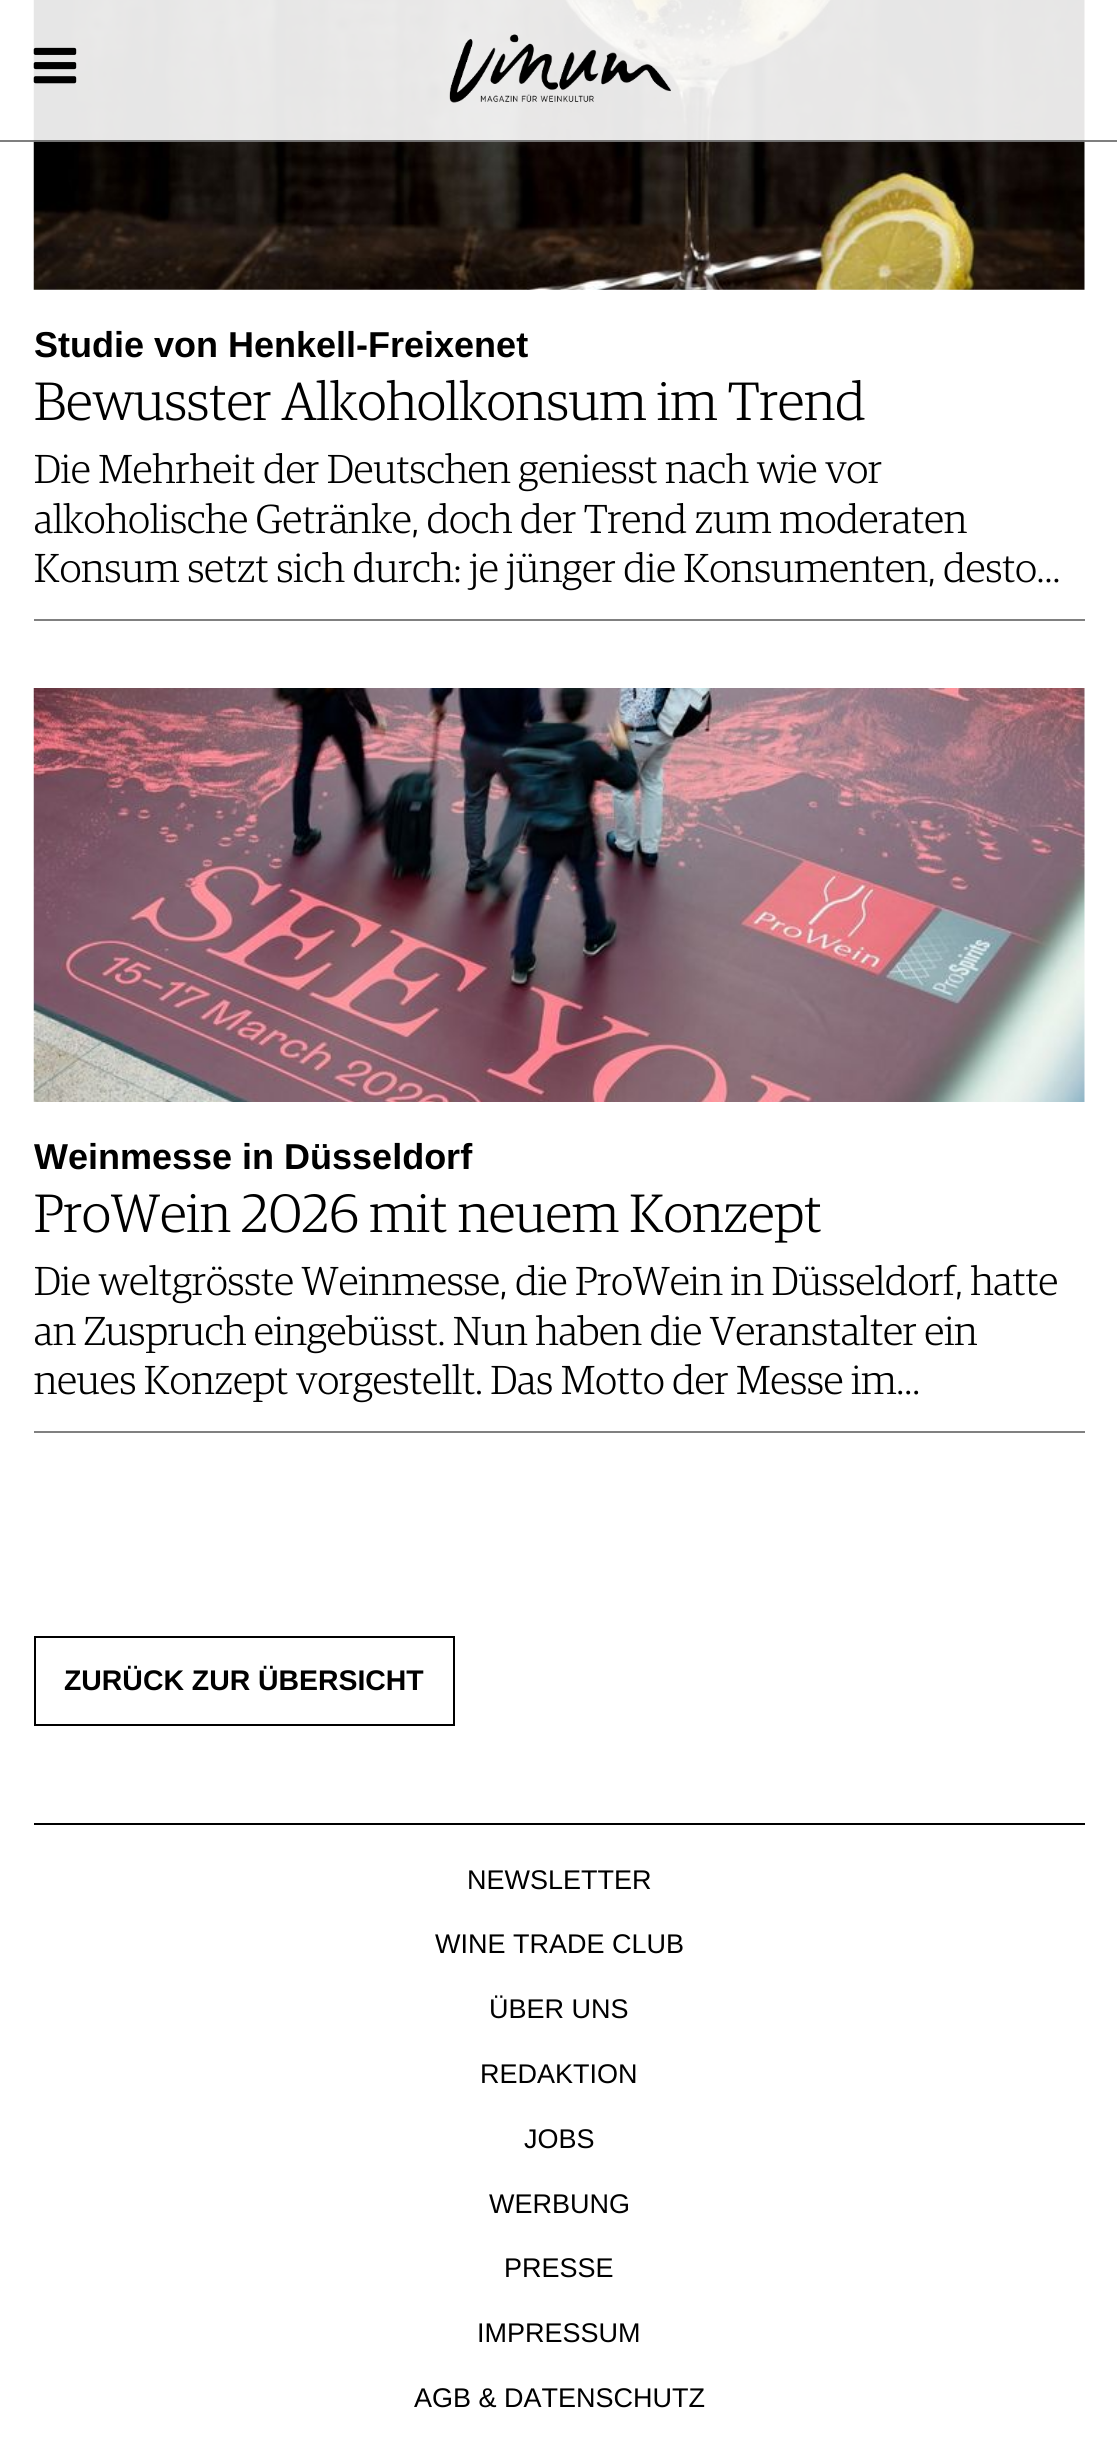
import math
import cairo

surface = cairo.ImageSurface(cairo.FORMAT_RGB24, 1117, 2445)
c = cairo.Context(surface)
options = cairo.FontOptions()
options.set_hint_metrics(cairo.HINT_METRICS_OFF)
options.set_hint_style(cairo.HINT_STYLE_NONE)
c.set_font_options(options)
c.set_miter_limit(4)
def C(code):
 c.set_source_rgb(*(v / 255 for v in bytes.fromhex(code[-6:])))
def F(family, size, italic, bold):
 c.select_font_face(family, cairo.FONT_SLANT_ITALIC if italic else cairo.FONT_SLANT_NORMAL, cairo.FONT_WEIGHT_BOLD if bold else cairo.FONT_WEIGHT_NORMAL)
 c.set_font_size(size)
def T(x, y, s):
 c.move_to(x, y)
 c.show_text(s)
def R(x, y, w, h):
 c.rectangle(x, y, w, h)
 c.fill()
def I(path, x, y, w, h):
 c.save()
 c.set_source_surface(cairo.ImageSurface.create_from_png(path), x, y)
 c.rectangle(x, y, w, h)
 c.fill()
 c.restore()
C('ffffff')
c.paint()
I('3.png',33,0,1052,290)
c.set_source_rgba(1,1,1,0.9)
R(33,0,1052,142)
c.set_source_rgba(0,0,0,0.5)
R(0,140,1117,2)
I('1.png',33,47,44,37)
I('2.png',449,34,222,69)
C('808080')
R(34,619,1051,2)
F('Liberation Sans',36,0,1)
C('000000')
T(34,357,'Studie von Henkell-Freixenet')
F('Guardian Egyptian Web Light',54,0,0)
T(34,420,'Bewusster Alkoholkonsum im Trend')
F('Guardian Egyptian Web Light',40.5,0,0)
T(34,483,'Die Mehrheit der Deutschen geniesst nach wie vor')
T(34,533,'alkoholische Getränke, doch der Trend zum moderaten')
T(34,582,'Konsum setzt sich durch: je jünger die Konsumenten, desto…')
C('808080')
R(34,1431,1051,2)
I('4.png',33,688,1052,414)
F('Liberation Sans',36,0,1)
C('000000')
T(34,1169,'Weinmesse in Düsseldorf')
F('Guardian Egyptian Web Light',54,0,0)
T(34,1232,'ProWein 2026 mit neuem Konzept')
F('Guardian Egyptian Web Light',40.5,0,0)
T(34,1295,'Die weltgrösste Weinmesse, die ProWein in Düsseldorf, hatte')
T(34,1345,'an Zuspruch eingebüsst. Nun haben die Veranstalter ein')
T(34,1394,'neues Konzept vorgestellt. Das Motto der Messe im…')
c.rectangle(35,1637,419,88)
c.stroke()
F('Liberation Sans',28.4,0,1)
T(64,1690,'ZURÜCK ZUR ÜBERSICHT')
R(34,1823,1051,2)
F('Liberation Sans',27,0,0)
T(467,1889,'NEWSLETTER')
T(435,1953,'WINE TRADE CLUB')
T(489,2018,'ÜBER UNS')
T(480,2083,'REDAKTION')
T(524,2148,'JOBS')
T(489,2213,'WERBUNG')
T(504,2277,'PRESSE')
T(477,2342,'IMPRESSUM')
T(414,2407,'AGB & DATENSCHUTZ')
surface.write_to_png('o.png')
